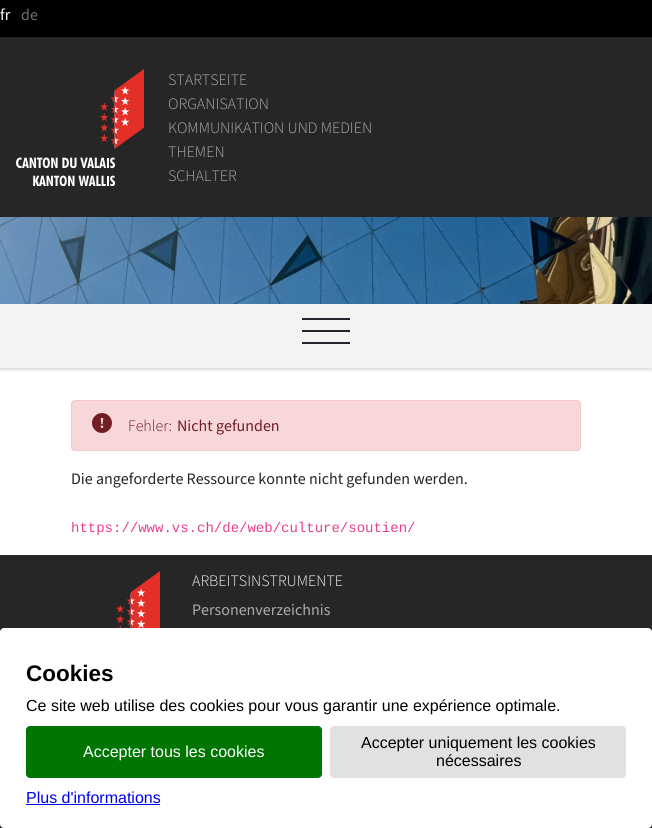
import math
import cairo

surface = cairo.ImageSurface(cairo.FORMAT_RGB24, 652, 828)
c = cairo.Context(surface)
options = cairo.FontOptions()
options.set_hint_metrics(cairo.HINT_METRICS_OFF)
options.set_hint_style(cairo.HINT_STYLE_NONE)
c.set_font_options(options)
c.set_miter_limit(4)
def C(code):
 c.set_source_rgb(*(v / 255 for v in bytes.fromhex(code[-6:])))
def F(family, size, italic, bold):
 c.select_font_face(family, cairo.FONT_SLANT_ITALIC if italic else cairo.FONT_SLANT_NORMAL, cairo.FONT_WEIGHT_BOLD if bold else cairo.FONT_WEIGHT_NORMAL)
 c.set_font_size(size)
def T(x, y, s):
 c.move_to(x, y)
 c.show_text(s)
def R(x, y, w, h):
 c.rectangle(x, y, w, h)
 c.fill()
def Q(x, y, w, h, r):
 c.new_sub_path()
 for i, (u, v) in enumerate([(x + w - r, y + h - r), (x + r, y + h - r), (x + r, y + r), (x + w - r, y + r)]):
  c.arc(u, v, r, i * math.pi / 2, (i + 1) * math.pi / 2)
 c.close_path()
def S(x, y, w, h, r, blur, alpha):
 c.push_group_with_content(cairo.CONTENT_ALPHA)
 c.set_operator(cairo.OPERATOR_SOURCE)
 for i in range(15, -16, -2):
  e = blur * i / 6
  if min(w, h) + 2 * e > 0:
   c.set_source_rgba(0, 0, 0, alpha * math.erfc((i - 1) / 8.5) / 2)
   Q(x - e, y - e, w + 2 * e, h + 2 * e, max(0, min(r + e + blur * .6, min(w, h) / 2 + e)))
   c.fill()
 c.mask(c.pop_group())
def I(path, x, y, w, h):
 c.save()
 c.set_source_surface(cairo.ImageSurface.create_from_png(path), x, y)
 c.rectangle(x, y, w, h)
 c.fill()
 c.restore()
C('ffffff')
c.paint()
C('000000')
R(0,0,652,37)
F('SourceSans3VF',16,0,0)
C('ffffff')
T(0,20,'fr')
C('6e6e6e')
T(21,20,'de')
C('262626')
R(0,37,652,180)
I('1.png',16,69,128,117)
F('SourceSans3VF Light',16,0,0)
C('aaaaaa')
T(168,85,'STARTSEITE')
T(168,109,'ORGANISATION')
T(168,133,'KOMMUNIKATION UND MEDIEN')
T(168,157,'THEMEN')
T(168,181,'SCHALTER')
C('000000')
S(0,306,652,64,0,1.5,.15)
I('2.png',0,217,652,87)
C('f3f3f2')
R(0,304,652,64)
C('212529')
R(302,318,48,2)
R(302,330,48,2)
R(302,342,48,2)
C('f8d7da')
Q(71.5,400.5,509,50,3.5)
c.fill_preserve()
C('f5c6cb')
c.set_line_width(1)
c.stroke()
I('3.png',92,413,20,20)
C('721c24')
T(128,431,'Fehler:')
F('SourceSans3VF',16,0,0)
T(177,431,'Nicht gefunden')
C('212529')
T(71,484,'Die angeforderte Ressource konnte nicht gefunden werden.')
F('Liberation Mono',14,0,0)
C('e83e8c')
T(71,532,'https://www.vs.ch/de/web/culture/soutien/')
C('262626')
R(0,555,652,273)
I('4.png',116,571,44,57)
F('SourceSans3VF Light',16,0,0)
C('f3f3f2')
T(192,586,'ARBEITSINSTRUMENTE')
F('SourceSans3VF',16,0,0)
C('aaaaaa')
T(192,615,'Personenverzeichnis')
C('ffffff')
Q(0,628,652,200,4)
c.fill()
F('Liberation Sans',22.5,0,1)
C('000000')
T(26,681,'Cookies')
F('Liberation Sans',16,0,0)
T(26,711,'Ce site web utilise des cookies pour vous garantir une expérience optimale.')
C('007502')
Q(26,726,296,52,4)
c.fill()
C('ffffff')
T(83,757,'Accepter tous les cookies')
C('e1e1e1')
Q(330,726,296,52,4)
c.fill()
C('000000')
T(361,748,'Accepter uniquement les cookies')
T(436,766,'nécessaires')
C('0000ee')
T(26,803,'Plus d\'informations')
R(26,804,134,1)
surface.write_to_png('o.png')
